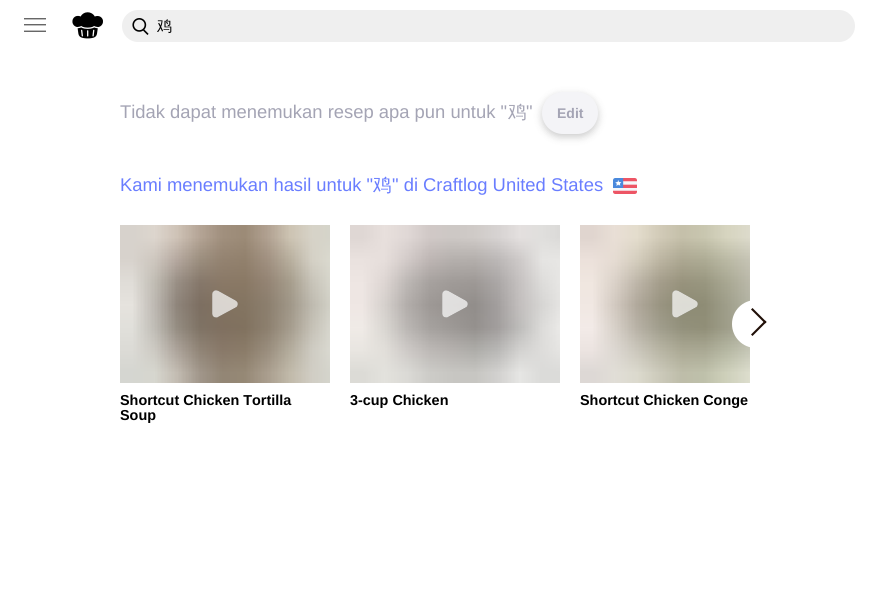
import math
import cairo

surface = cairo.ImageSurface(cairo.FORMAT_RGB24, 871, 610)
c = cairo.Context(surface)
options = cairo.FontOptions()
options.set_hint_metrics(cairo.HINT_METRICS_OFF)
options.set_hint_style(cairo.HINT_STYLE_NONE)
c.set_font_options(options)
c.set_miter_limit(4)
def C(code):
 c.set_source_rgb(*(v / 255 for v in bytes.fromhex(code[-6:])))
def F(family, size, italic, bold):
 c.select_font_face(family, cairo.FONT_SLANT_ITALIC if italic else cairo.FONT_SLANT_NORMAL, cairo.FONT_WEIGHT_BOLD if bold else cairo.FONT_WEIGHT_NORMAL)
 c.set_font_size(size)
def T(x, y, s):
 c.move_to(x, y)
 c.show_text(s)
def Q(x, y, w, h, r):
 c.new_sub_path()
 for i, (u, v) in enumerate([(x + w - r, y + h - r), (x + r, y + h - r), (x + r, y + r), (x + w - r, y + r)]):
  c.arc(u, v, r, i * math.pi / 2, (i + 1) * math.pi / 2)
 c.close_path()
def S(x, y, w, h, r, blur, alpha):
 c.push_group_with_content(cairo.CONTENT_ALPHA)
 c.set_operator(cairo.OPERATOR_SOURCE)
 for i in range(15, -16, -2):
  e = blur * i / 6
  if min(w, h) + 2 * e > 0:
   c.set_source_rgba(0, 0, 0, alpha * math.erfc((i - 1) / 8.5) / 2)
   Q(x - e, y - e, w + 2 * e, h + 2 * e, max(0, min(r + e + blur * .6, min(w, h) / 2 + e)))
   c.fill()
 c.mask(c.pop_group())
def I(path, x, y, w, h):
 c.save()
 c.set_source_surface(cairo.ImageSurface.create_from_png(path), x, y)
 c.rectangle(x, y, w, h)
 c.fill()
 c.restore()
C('ffffff')
c.paint()
I('1.png',24,18,22,14)
I('2.png',72,12,31,27)
C('efefef')
Q(122,10,733,32,16)
c.fill()
I('3.png',132,18,17,17)
F('WenQuanYi Zen Hei Medium',15,0,0)
C('000000')
T(157,31,'鸡')
F('Liberation Sans',18.4,0,0)
C('a4a4b4')
T(120,118,'Tidak dapat menemukan resep apa pun untuk "')
F('WenQuanYi Zen Hei Medium',18.4,0,0)
T(508,118,'鸡')
F('Liberation Sans',18.4,0,0)
T(526,118,'"')
C('000000')
S(542,95,56,42,21,4,.2)
C('f4f4f7')
Q(542,92,56,42,21)
c.fill()
F('Liberation Sans',14,0,1)
C('a4a4b4')
T(557,118,'Edit')
F('Liberation Sans',18.4,0,0)
C('697dff')
T(120,191,'Kami menemukan hasil untuk "')
F('WenQuanYi Zen Hei Medium',18.4,0,0)
T(373,191,'鸡')
F('Liberation Sans',18.4,0,0)
T(392,191,'" di Craftlog United States')
I('4.png',613,178,24,16)
I('9.png',580,225,170,158)
C('ffffff')
c.arc(756,324,24,0,2 * math.pi)
c.fill()
C('200f07')
c.new_path()
c.move_to(752.5,308)
c.line_to(766.5,322)
c.line_to(765,323.5)
c.line_to(751,309.5)
c.close_path()
c.fill()
c.new_path()
c.move_to(765,320.5)
c.line_to(766.5,322)
c.line_to(752.5,336)
c.line_to(751,334.5)
c.close_path()
c.fill()
I('5.png',120,225,210,158)
I('6.png',212,290,26,28)
F('Liberation Sans',14.4,0,1)
C('000000')
T(120,405,'Shortcut Chicken Tortilla')
T(120,420,'Soup')
I('7.png',350,225,210,158)
I('8.png',442,290,26,28)
T(350,405,'3-cup Chicken')
I('10.png',672,290,26,28)
T(580,405,'Shortcut Chicken Conge')
surface.write_to_png('o.png')
